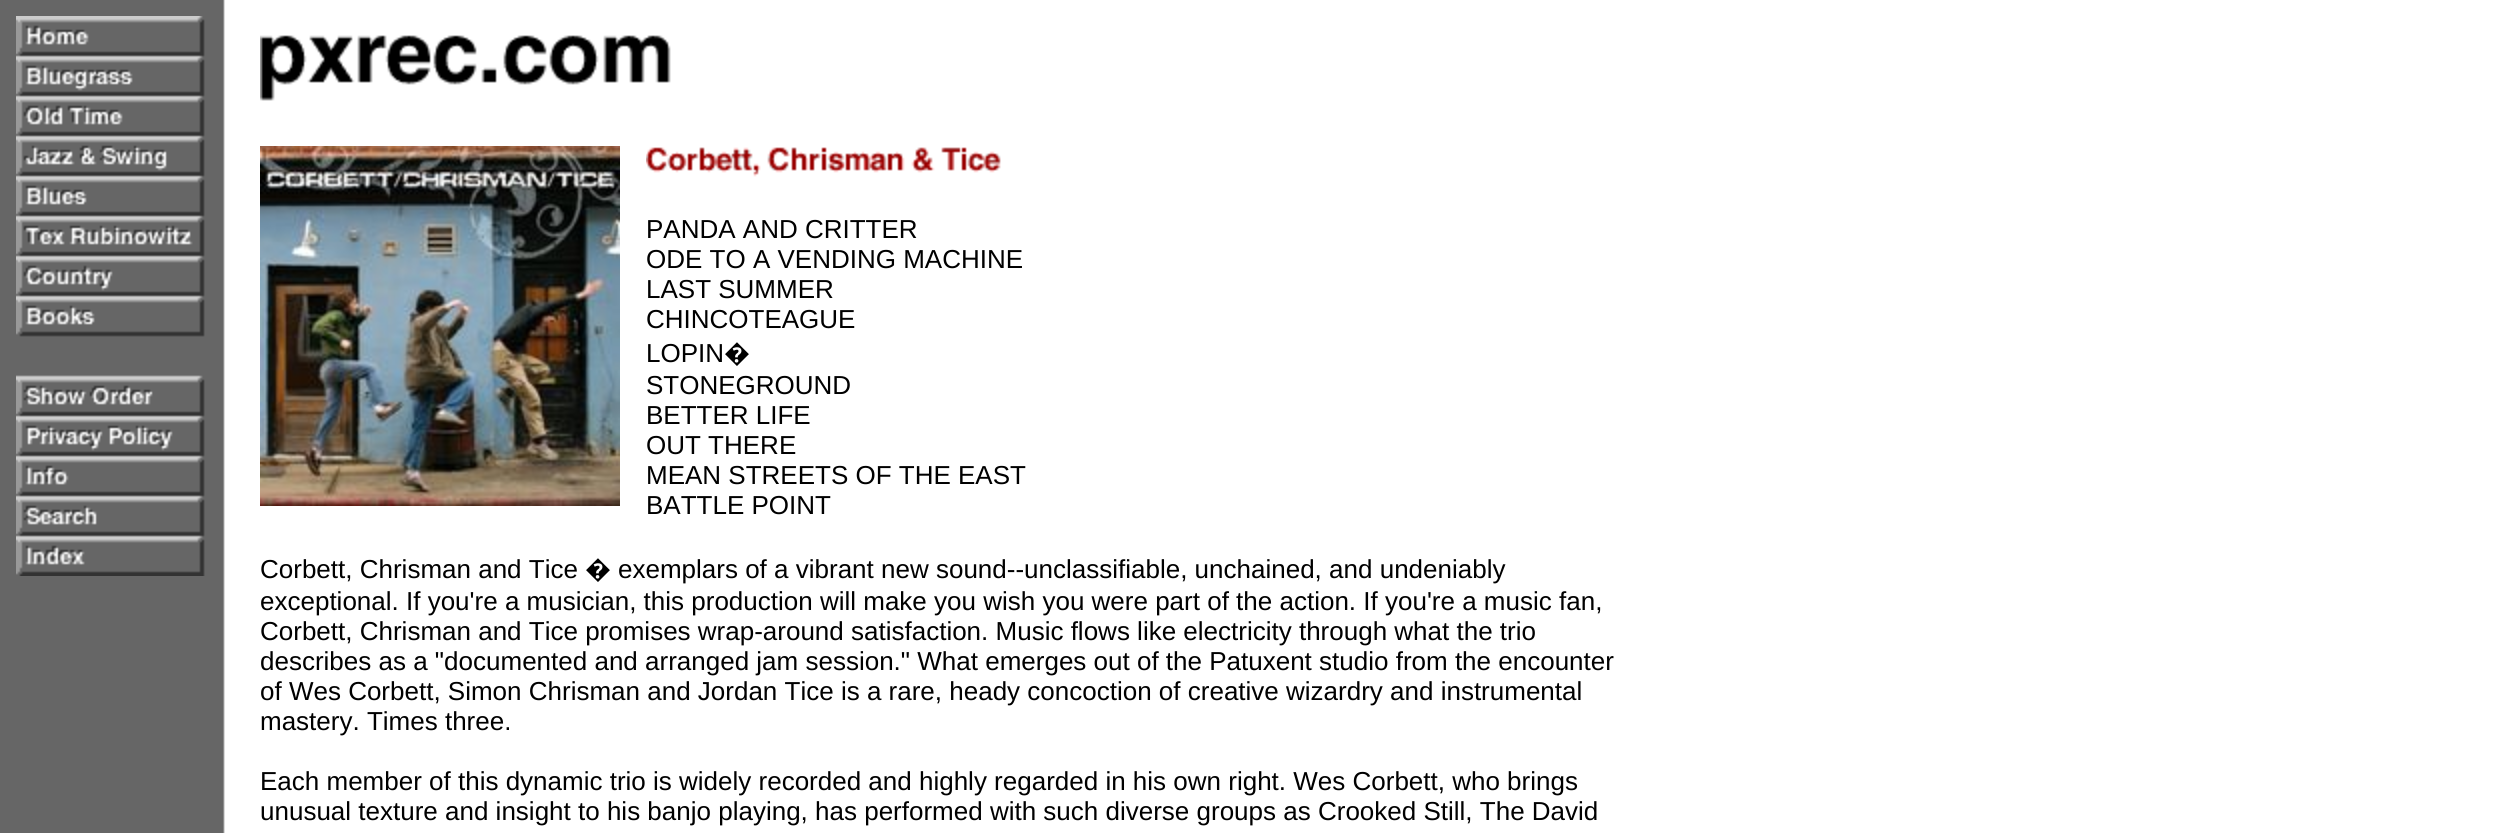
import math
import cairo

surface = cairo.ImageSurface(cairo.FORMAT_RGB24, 2495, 833)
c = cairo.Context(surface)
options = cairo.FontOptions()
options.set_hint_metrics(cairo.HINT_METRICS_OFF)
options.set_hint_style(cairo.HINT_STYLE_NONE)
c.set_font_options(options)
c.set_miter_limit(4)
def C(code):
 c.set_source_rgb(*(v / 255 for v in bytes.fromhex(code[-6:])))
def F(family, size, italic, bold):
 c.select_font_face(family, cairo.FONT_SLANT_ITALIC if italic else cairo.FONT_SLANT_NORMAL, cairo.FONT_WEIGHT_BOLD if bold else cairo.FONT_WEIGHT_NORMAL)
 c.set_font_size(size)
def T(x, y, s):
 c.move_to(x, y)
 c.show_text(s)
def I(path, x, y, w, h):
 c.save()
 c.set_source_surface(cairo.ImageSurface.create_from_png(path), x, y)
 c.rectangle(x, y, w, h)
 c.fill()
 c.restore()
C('ffffff')
c.paint()
I('1.png',0,0,225,833)
I('2.png',16,16,189,560)
I('3.png',260,35,411,66)
I('4.png',260,146,360,360)
I('5.png',646,147,355,30)
F('Liberation Sans',26,0,0)
C('000000')
T(646,238,'PANDA AND CRITTER')
T(646,268,'ODE TO A VENDING MACHINE')
T(646,298,'LAST SUMMER')
T(646,328,'CHINCOTEAGUE')
T(646,362,'LOPIN')
F('Noto Sans',26,0,0)
T(724,362,'�')
F('Liberation Sans',26,0,0)
T(646,394,'STONEGROUND')
T(646,424,'BETTER LIFE')
T(646,454,'OUT THERE')
T(646,484,'MEAN STREETS OF THE EAST')
T(646,514,'BATTLE POINT')
T(260,578,'Corbett, Chrisman and Tice')
F('Noto Sans',26,0,0)
T(585,578,'�')
F('Liberation Sans',26,0,0)
T(618,578,'exemplars of a vibrant new sound--unclassifiable, unchained, and undeniably')
T(260,610,'exceptional. If you\'re a musician, this production will make you wish you were part of the action. If you\'re a music fan,')
T(260,640,'Corbett, Chrisman and Tice promises wrap-around satisfaction. Music flows like electricity through what the trio')
T(260,670,'describes as a "documented and arranged jam session." What emerges out of the Patuxent studio from the encounter')
T(260,700,'of Wes Corbett, Simon Chrisman and Jordan Tice is a rare, heady concoction of creative wizardry and instrumental')
T(260,730,'mastery. Times three.')
T(260,790,'Each member of this dynamic trio is widely recorded and highly regarded in his own right. Wes Corbett, who brings')
T(260,820,'unusual texture and insight to his banjo playing, has performed with such diverse groups as Crooked Still, The David')
surface.write_to_png('o.png')
